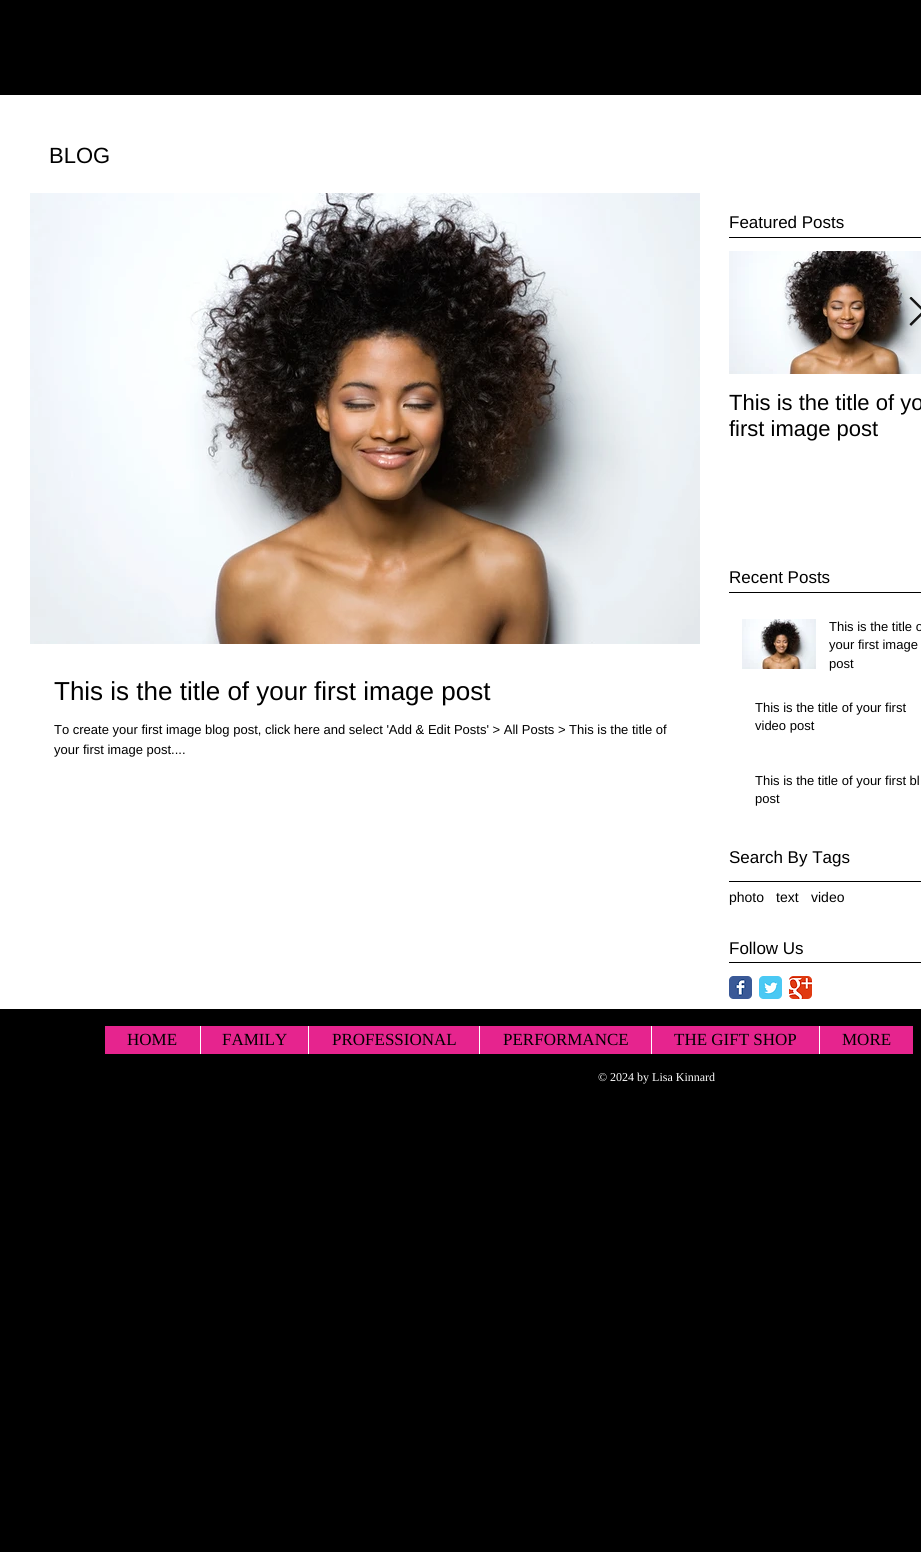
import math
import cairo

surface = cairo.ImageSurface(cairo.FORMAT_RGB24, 921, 1552)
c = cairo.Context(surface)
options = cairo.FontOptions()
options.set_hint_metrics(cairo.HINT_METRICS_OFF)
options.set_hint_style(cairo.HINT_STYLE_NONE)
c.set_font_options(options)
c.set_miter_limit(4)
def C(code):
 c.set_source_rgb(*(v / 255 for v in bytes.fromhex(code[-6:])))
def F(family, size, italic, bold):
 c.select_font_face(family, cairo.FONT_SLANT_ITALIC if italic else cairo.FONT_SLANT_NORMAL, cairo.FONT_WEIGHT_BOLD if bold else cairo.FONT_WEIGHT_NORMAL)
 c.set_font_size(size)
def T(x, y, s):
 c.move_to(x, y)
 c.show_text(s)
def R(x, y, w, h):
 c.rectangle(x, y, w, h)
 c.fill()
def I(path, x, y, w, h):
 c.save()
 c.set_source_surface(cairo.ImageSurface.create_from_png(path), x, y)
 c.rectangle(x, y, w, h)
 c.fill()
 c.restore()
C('000000')
c.paint()
C('ffffff')
R(0,95,921,914)
F('Liberation Sans',22,0,0)
C('000000')
T(49,163,'BLOG')
F('Liberation Sans',17,0,0)
T(729,228,'Featured Posts')
R(729,237,192,1)
I('2.png',729,251,192,123)
I('1.png',909,297,12,29)
F('Liberation Sans',22,0,0)
T(729,410,'This is the title of yo')
T(729,436,'first image post')
F('Liberation Sans',17,0,0)
T(729,583,'Recent Posts')
R(729,592,192,1)
I('3.png',30,193,670,451)
F('Liberation Sans',26,0,0)
T(54,700,'This is the title of your first image post')
F('Liberation Sans',13,0,0)
T(54,734,'To create your first image blog post, click here and select \'Add & Edit Posts\' > All Posts > This is the title of')
T(54,754,'your first image post....')
I('4.png',742,619,74,50)
T(829,631,'This is the title o')
T(829,649,'your first image')
T(829,668,'post')
T(755,712,'This is the title of your first')
T(755,730,'video post')
T(755,785,'This is the title of your first bl')
T(755,803,'post')
F('Liberation Sans',17,0,0)
T(729,863,'Search By Tags')
R(729,881,192,1)
F('Liberation Sans',14,0,0)
T(729,902,'photo')
T(776,902,'text')
T(811,902,'video')
F('Liberation Sans',17,0,0)
T(729,954,'Follow Us')
R(729,962,192,1)
I('5.png',729,976,23,23)
I('6.png',759,976,23,23)
I('7.png',789,976,23,23)
C('e6248e')
R(105,1026,808,28)
F('Liberation Serif',17,0,0)
C('000000')
T(127,1045,'HOME')
C('ffffff')
R(200,1026,1,28)
C('000000')
T(222,1045,'FAMILY')
C('ffffff')
R(308,1026,1,28)
C('000000')
T(332,1045,'PROFESSIONAL')
C('ffffff')
R(479,1026,1,28)
C('000000')
T(503,1045,'PERFORMANCE')
C('ffffff')
R(651,1026,1,28)
C('000000')
T(674,1045,'THE GIFT SHOP')
C('ffffff')
R(819,1026,1,28)
C('000000')
T(842,1045,'MORE')
F('Liberation Serif',12,0,0)
C('ffffff')
T(598,1081,'© 2024 by Lisa Kinnard')
surface.write_to_png('o.png')
